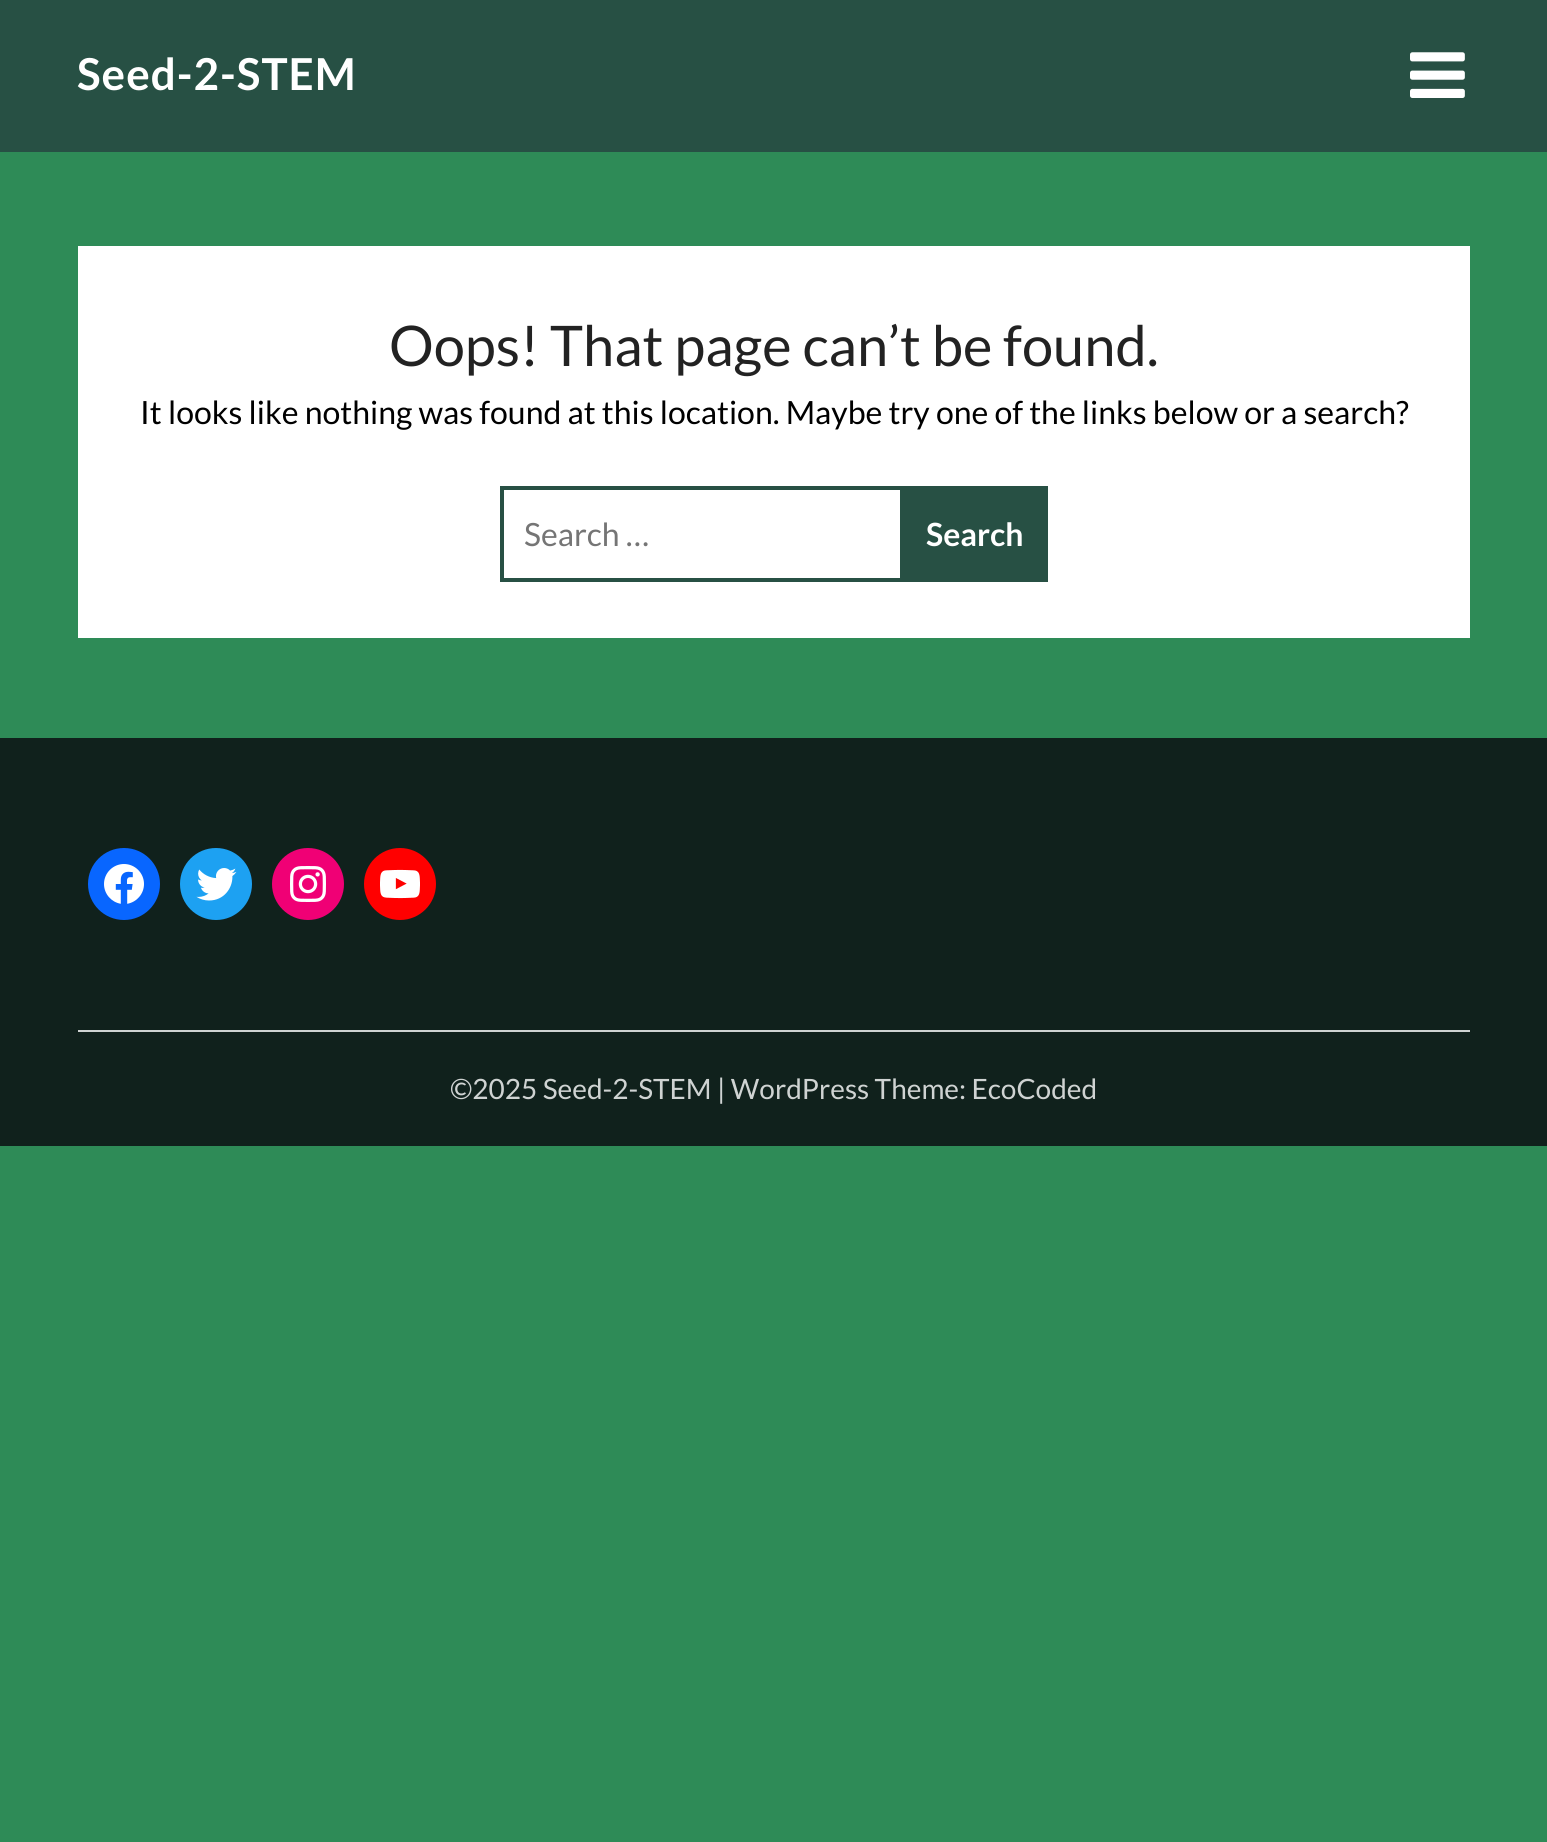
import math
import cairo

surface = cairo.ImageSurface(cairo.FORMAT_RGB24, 1547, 1842)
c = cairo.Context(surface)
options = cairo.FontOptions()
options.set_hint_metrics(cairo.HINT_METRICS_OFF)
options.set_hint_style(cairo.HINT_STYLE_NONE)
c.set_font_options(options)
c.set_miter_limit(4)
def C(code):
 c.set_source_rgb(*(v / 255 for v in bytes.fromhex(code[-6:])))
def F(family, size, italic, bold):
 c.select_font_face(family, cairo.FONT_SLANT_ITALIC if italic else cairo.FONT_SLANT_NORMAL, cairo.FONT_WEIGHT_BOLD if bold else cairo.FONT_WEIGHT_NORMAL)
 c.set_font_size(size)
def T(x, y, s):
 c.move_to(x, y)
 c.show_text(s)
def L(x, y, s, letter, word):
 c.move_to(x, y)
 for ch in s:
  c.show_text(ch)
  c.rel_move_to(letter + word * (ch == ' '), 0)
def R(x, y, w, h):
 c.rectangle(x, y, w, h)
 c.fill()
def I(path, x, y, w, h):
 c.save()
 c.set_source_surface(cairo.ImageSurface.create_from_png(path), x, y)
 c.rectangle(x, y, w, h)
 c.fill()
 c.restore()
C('2e8b57')
c.paint()
C('275044')
R(0,0,1547,152)
F('Lato',44,0,1)
C('ffffff')
L(77,90,'Seed-2-STEM',1,0)
I('1.png',1410,52,55,46)
R(78,246,1392,392)
F('Lato',56,0,0)
C('222222')
T(389,366,'Oops! That page can’t be found.')
F('Lato',32,0,0)
C('000000')
T(140,424,'It looks like nothing was found at this location. Maybe try one of the links below or a search?')
c.rectangle(502,488,400,92)
C('275044')
c.set_line_width(4)
c.stroke()
C('757575')
T(524,546,'Search …')
C('275044')
R(904,486,144,96)
F('Lato',32,0,1)
C('ffffff')
T(926,546,'Search')
C('10211c')
R(0,738,1547,408)
C('0866ff')
c.new_path()
c.arc(124,884,36,0,2 * math.pi)
c.fill()
I('2.png',104,864,40,40)
C('1da1f2')
c.arc(216,884,36,0,2 * math.pi)
c.fill()
I('3.png',196,868,41,33)
C('f00075')
c.arc(308,884,36,0,2 * math.pi)
c.fill()
I('4.png',290,866,36,36)
C('ff0000')
c.arc(400,884,36,0,2 * math.pi)
c.fill()
I('5.png',380,869,40,30)
C('cfd3d2')
R(78,1030,1392,2)
F('Lato',28,0,0)
T(450,1099,'©2025 Seed-2-STEM | WordPress Theme: EcoCoded')
surface.write_to_png('o.png')
